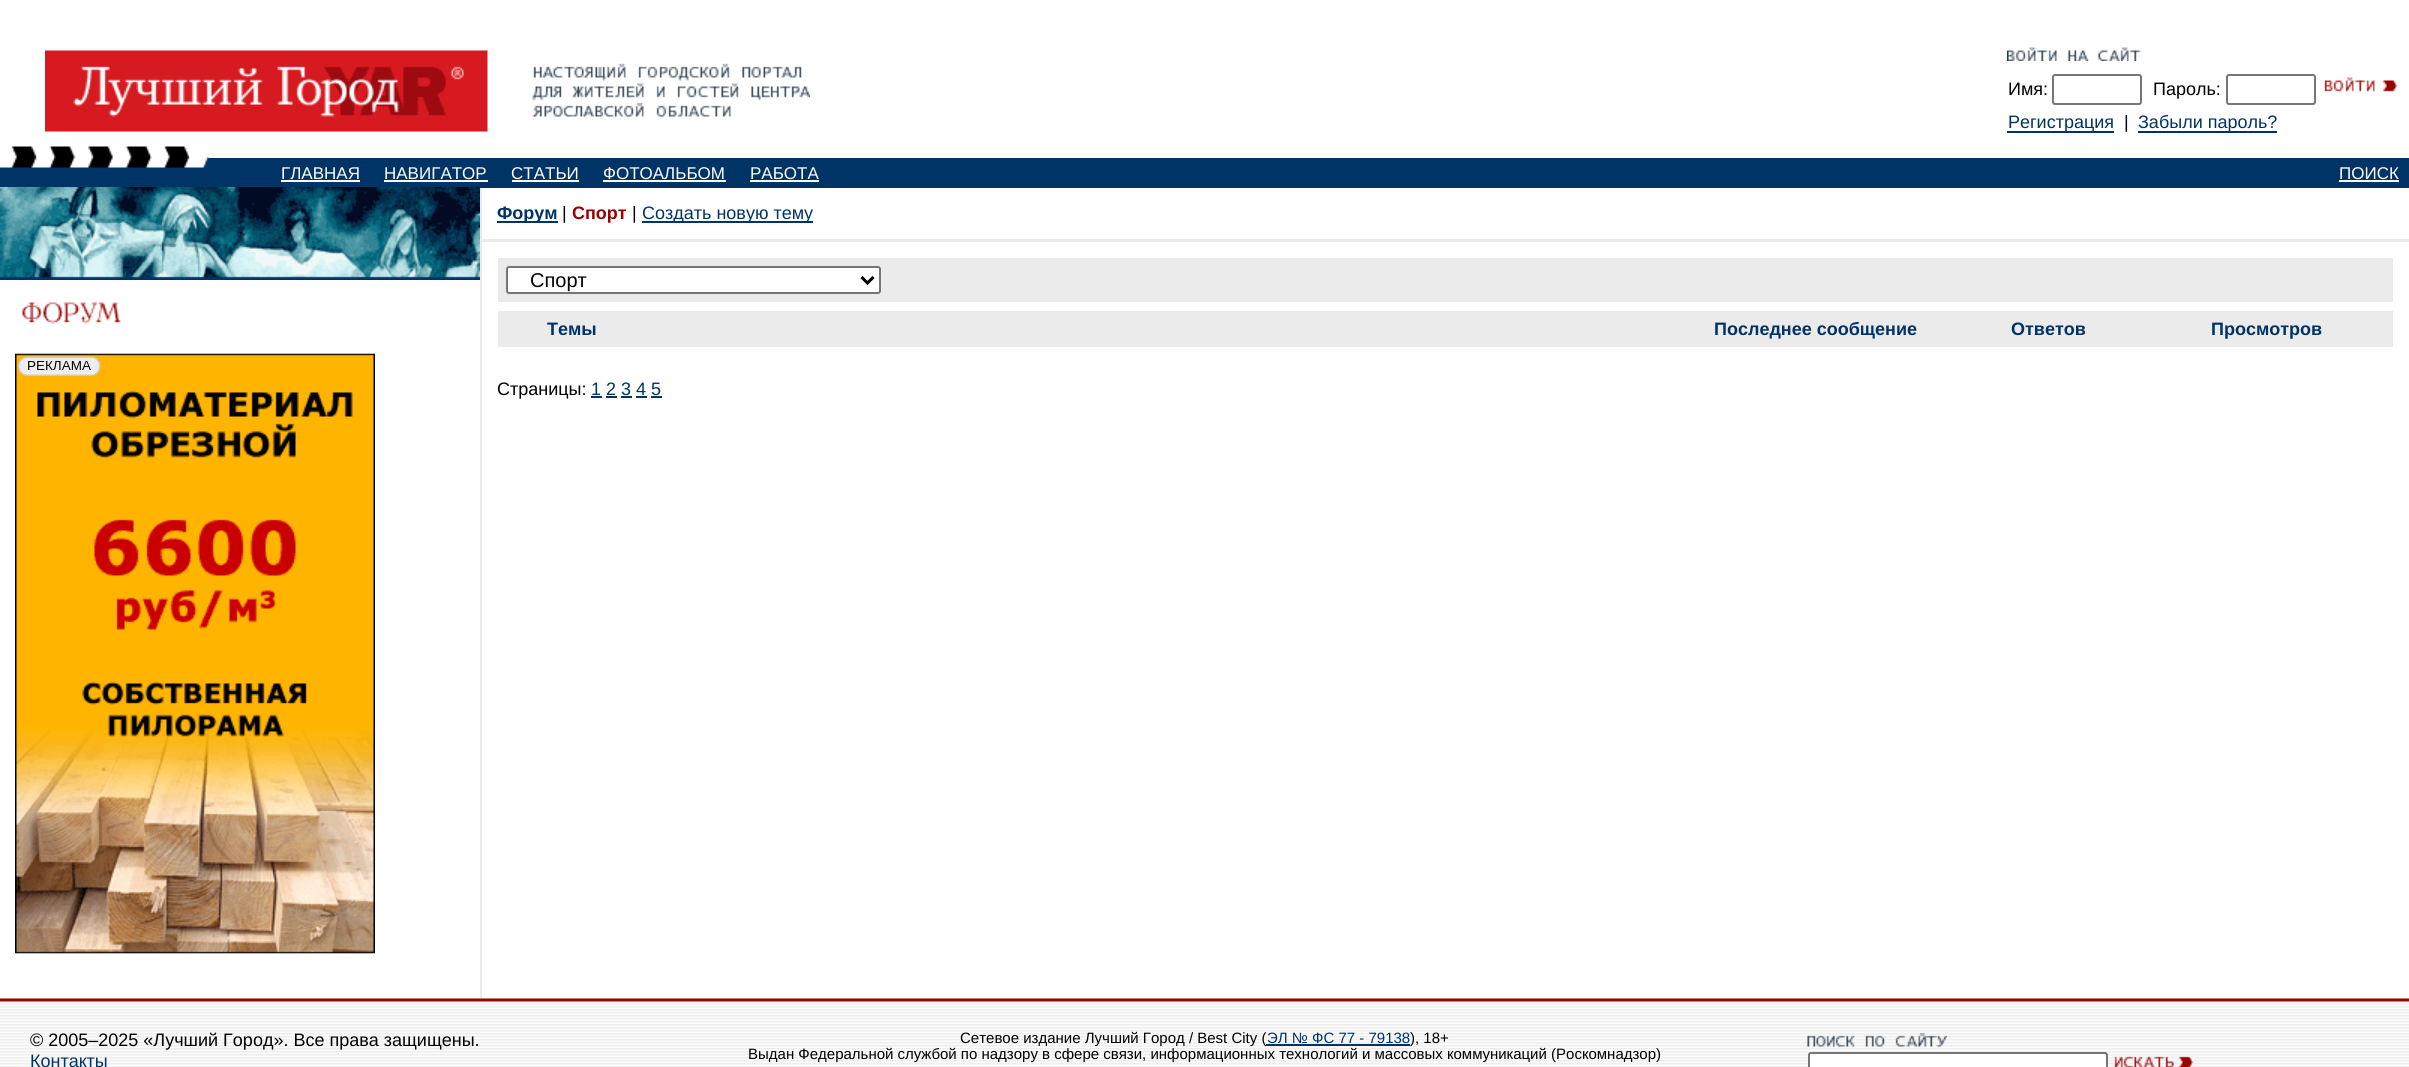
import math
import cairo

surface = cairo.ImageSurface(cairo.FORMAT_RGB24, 2409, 1067)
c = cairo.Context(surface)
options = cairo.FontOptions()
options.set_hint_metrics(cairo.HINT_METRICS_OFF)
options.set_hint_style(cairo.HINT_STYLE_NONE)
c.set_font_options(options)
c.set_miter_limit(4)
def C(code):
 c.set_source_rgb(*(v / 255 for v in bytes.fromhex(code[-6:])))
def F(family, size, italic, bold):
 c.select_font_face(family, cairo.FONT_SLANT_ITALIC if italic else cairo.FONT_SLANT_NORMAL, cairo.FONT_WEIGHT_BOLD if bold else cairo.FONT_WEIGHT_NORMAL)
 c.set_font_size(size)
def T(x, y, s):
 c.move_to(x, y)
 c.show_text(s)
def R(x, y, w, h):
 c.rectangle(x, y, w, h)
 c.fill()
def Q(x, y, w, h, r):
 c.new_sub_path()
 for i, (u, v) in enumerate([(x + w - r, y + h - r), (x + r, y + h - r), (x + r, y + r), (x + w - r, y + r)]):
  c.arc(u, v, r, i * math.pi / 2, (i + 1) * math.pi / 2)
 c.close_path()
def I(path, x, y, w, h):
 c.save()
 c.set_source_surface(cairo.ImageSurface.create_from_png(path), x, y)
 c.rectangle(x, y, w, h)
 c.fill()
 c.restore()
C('ffffff')
c.paint()
I('1.png',45,50,443,82)
I('2.png',532,63,278,54)
I('3.png',2007,47,134,14)
F('Liberation Sans',18,0,0)
C('000000')
T(2008,95,'Имя:')
Q(2053,75,88,29,2)
C('767676')
c.stroke()
C('000000')
T(2153,95,'Пароль:')
Q(2227,75,88,29,2)
C('767676')
c.stroke()
I('4.png',2324,77,74,15)
C('003366')
R(2007,131,107,2)
T(2008,128,'Регистрация')
C('000000')
T(2124,128,'|')
C('003366')
R(2138,131,139,2)
T(2138,128,'Забыли пароль?')
I('5.png',11,146,178,11)
R(0,158,2409,30)
I('6.png',0,157,209,11)
F('Liberation Sans',17,0,0)
C('ffffff')
T(281,179,'ГЛАВНАЯ')
R(281,180,79,2)
T(384,179,'НАВИГАТОР')
R(384,180,104,2)
T(511,179,'СТАТЬИ')
R(512,180,67,2)
T(603,179,'ФОТОАЛЬБОМ')
R(603,180,123,2)
T(750,179,'РАБОТА')
R(750,180,69,2)
T(2339,179,'ПОИСК')
R(2339,180,60,2)
C('ebebeb')
R(480,188,2,811)
I('7.png',0,187,480,93)
I('8.png',22,302,100,22)
C('eeeeee')
R(15,953,360,1)
I('9.png',15,353,360,601)
C('ebebeb')
R(482,239,1927,3)
C('003366')
R(497,221,61,2)
F('Liberation Sans',18,0,1)
T(497,219,'Форум')
F('Liberation Sans',18,0,0)
C('000000')
T(562,219,'|')
F('Liberation Sans',18,0,1)
C('990000')
T(572,219,'Спорт')
F('Liberation Sans',18,0,0)
C('000000')
T(632,219,'|')
C('003366')
R(642,221,171,2)
T(642,219,'Создать новую тему')
C('ebebeb')
R(498,258,1895,44)
C('ffffff')
Q(507,267,373,26,2)
c.fill_preserve()
C('767676')
c.stroke()
c.new_path()
c.move_to(861.5,277)
c.line_to(867.5,283)
c.line_to(873.5,277)
C('000000')
c.set_line_width(3)
c.stroke()
F('Liberation Sans',20,0,0)
T(530,287,'Спорт')
C('ebebeb')
R(498,311,1895,36)
F('Liberation Sans',18,0,1)
C('003366')
T(547,335,'Темы')
T(1714,335,'Последнее сообщение')
T(2011,335,'Ответов')
T(2211,335,'Просмотров')
F('Liberation Sans',18,0,0)
C('000000')
T(497,395,'Страницы:')
C('003366')
T(591,395,'1 2 3 4 5')
R(591,396,11,2)
R(606,396,11,2)
R(621,396,11,2)
R(636,396,11,2)
R(651,396,11,2)
I('10.png',0,998,2409,69)
C('000000')
T(30,1046,'© 2005–2025 «Лучший Город». Все права защищены.')
C('003366')
T(30,1067,'Контакты')
F('Liberation Sans',15,0,0)
C('000000')
T(960,1043,'Сетевое издание Лучший Город / Best City (')
C('003366')
T(1267,1043,'ЭЛ № ФС 77 - 79138')
C('000000')
T(1410,1043,'), 18+')
C('003366')
R(1266,1044,144,2)
C('000000')
T(748,1059,'Выдан Федеральной службой по надзору в сфере связи, информационных технологий и массовых коммуникаций (Роскомнадзор)')
I('11.png',1807,1033,140,14)
C('ffffff')
Q(1809,1053,298,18,2)
c.fill_preserve()
C('767676')
c.set_line_width(2)
c.stroke()
I('12.png',2114,1056,80,11)
surface.write_to_png('o.png')
